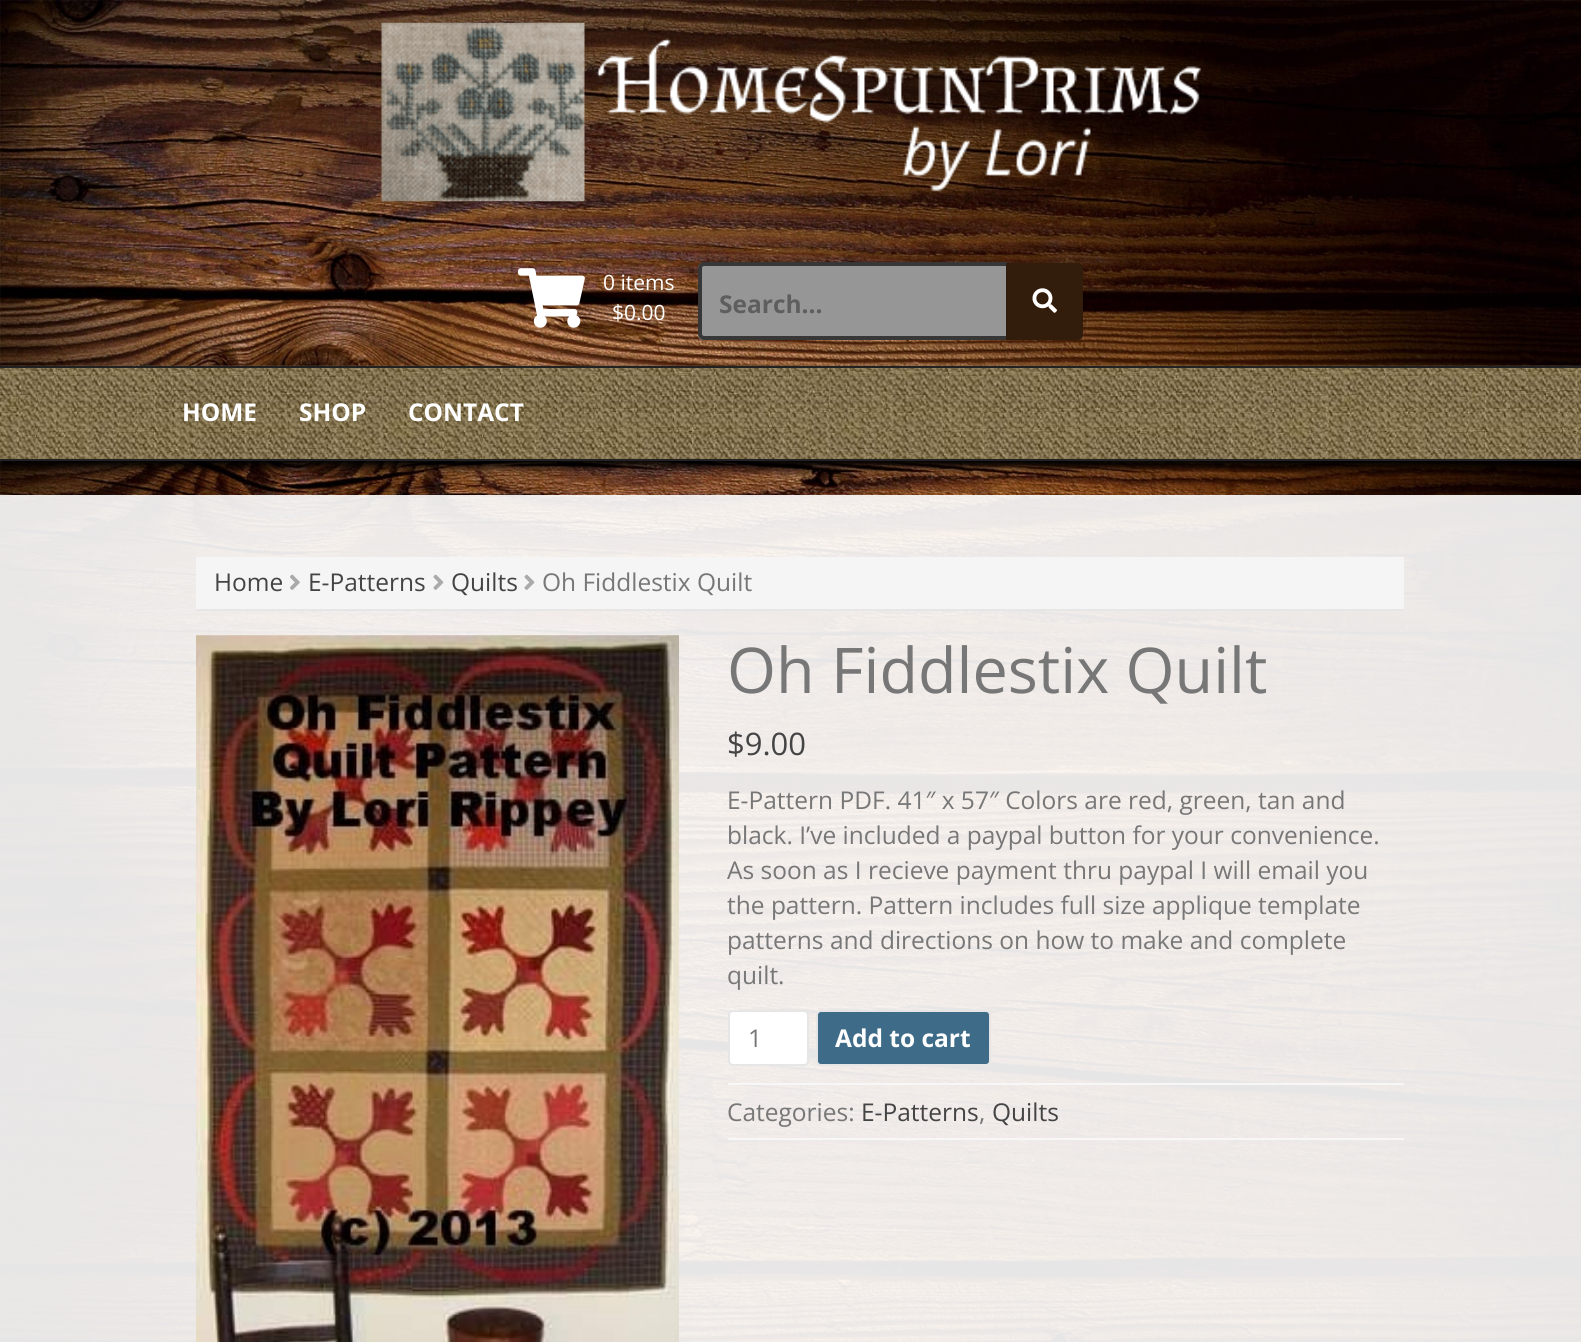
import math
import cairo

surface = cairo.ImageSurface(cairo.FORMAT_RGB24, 1581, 1342)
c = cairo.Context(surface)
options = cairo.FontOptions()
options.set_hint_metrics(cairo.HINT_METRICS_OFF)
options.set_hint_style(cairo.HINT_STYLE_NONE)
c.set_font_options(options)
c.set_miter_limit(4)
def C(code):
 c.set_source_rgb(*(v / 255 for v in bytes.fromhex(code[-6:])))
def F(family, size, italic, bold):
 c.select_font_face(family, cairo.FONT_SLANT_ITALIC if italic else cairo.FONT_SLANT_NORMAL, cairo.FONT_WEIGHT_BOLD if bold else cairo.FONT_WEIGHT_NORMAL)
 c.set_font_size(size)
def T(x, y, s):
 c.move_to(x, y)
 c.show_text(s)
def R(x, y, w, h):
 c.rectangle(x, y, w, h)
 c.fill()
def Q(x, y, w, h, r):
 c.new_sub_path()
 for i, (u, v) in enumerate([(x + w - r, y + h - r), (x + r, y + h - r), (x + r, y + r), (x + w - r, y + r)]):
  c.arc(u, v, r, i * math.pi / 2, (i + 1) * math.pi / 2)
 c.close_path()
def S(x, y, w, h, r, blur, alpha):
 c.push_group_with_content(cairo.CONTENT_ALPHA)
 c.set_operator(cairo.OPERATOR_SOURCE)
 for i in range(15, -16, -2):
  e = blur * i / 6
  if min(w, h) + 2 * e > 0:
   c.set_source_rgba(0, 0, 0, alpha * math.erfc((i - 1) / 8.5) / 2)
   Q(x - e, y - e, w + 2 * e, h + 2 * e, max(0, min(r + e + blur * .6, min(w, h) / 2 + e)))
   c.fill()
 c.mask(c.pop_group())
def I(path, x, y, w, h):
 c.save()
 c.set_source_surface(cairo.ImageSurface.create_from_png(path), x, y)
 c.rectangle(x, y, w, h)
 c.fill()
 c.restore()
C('ffffff')
c.paint()
I('1.png',0,0,1581,1342)
I('2.png',381,22,820,180)
I('3.png',518,268,67,60)
F('Open Sans',21,0,0)
C('ffffff')
T(603,290,'0 items')
T(612,320,'$0.00')
C('969696')
Q(698,263,314,77,5)
c.fill()
C('373737')
c.set_fill_rule(cairo.FILL_RULE_EVEN_ODD)
c.new_path()
c.move_to(704,262)
c.line_to(1006,262)
c.curve_to(1009,262,1012,265,1012,268)
c.line_to(1012,334)
c.curve_to(1012,337,1009,340,1006,340)
c.line_to(704,340)
c.curve_to(701,340,698,337,698,334)
c.line_to(698,268)
c.curve_to(698,265,701,262,704,262)
c.close_path()
c.move_to(704,266)
c.line_to(1006,266)
c.curve_to(1009,266,1012,267,1012,268)
c.line_to(1012,334)
c.curve_to(1012,335,1009,336,1006,336)
c.line_to(704,336)
c.curve_to(703,336,702,335,702,334)
c.line_to(702,268)
c.curve_to(702,267,703,266,704,266)
c.close_path()
c.fill()
F('Open Sans',24.5,0,1)
C('5e5e5e')
T(719,313,'Search...')
C('321c0c')
c.new_path()
c.move_to(1008,265)
c.line_to(1078,265)
c.curve_to(1079.5,265,1081,266.5,1081,268)
c.line_to(1081,335)
c.curve_to(1081,336.5,1079.5,338,1078,338)
c.line_to(1008,338)
c.close_path()
c.fill_preserve()
c.set_line_width(4)
c.stroke()
I('4.png',1032,288,25,25)
C('000000')
S(0,373,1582,94,0,4.5,1)
I('5.png',0,365,1581,94)
C('222222')
R(0,366,1581,2)
R(0,459,1581,2)
C('ffffff')
T(182,421,'HOME')
T(299,421,'SHOP')
T(408,421,'CONTACT')
c.set_source_rgba(1,1,1,0.9)
R(0,495,1581,847)
C('f5f5f5')
R(196,557,1208,52)
C('e6e6e6')
R(196,609,1208,2)
F('Open Sans',24.5,0,0)
C('444444')
T(214,591,'Home')
I('6.png',290,574,10,16)
T(308,591,'E-Patterns')
I('7.png',433,574,11,16)
T(451,591,'Quilts')
I('7.png',524,574,11,16)
C('777777')
T(542,591,'Oh Fiddlestix Quilt')
I('8.png',196,635,483,707)
F('Open Sans',63,0,0)
T(727,693,'Oh Fiddlestix Quilt')
F('Open Sans',31,0,0)
C('444444')
T(727,755,'$9.00')
F('Open Sans',24.5,0,0)
C('777777')
T(727,809,'E-Pattern PDF. 41″ x 57″ Colors are red, green, tan and')
T(727,844,'black. I’ve included a paypal button for your convenience.')
T(727,879,'As soon as I recieve payment thru paypal I will email you')
T(727,914,'the pattern. Pattern includes full size applique template')
T(727,949,'patterns and directions on how to make and complete')
T(727,984,'quilt.')
C('ffffff')
Q(729,1011,79,54,4)
c.fill_preserve()
C('e6e6e6')
c.set_line_width(2)
c.stroke()
C('777777')
T(748,1047,'1')
C('3e6b88')
Q(817,1011,173,54,4)
c.fill_preserve()
C('e6e6e6')
c.stroke()
F('Open Sans',24.5,0,1)
C('ffffff')
T(835,1047,'Add to cart')
C('f7f7f7')
R(728,1083,676,2)
R(728,1138,676,2)
F('Open Sans',24.5,0,0)
C('777777')
T(727,1121,'Categories:')
C('444444')
T(861,1121,'E-Patterns')
C('777777')
T(979,1121,',')
C('444444')
T(992,1121,'Quilts')
surface.write_to_png('o.png')
